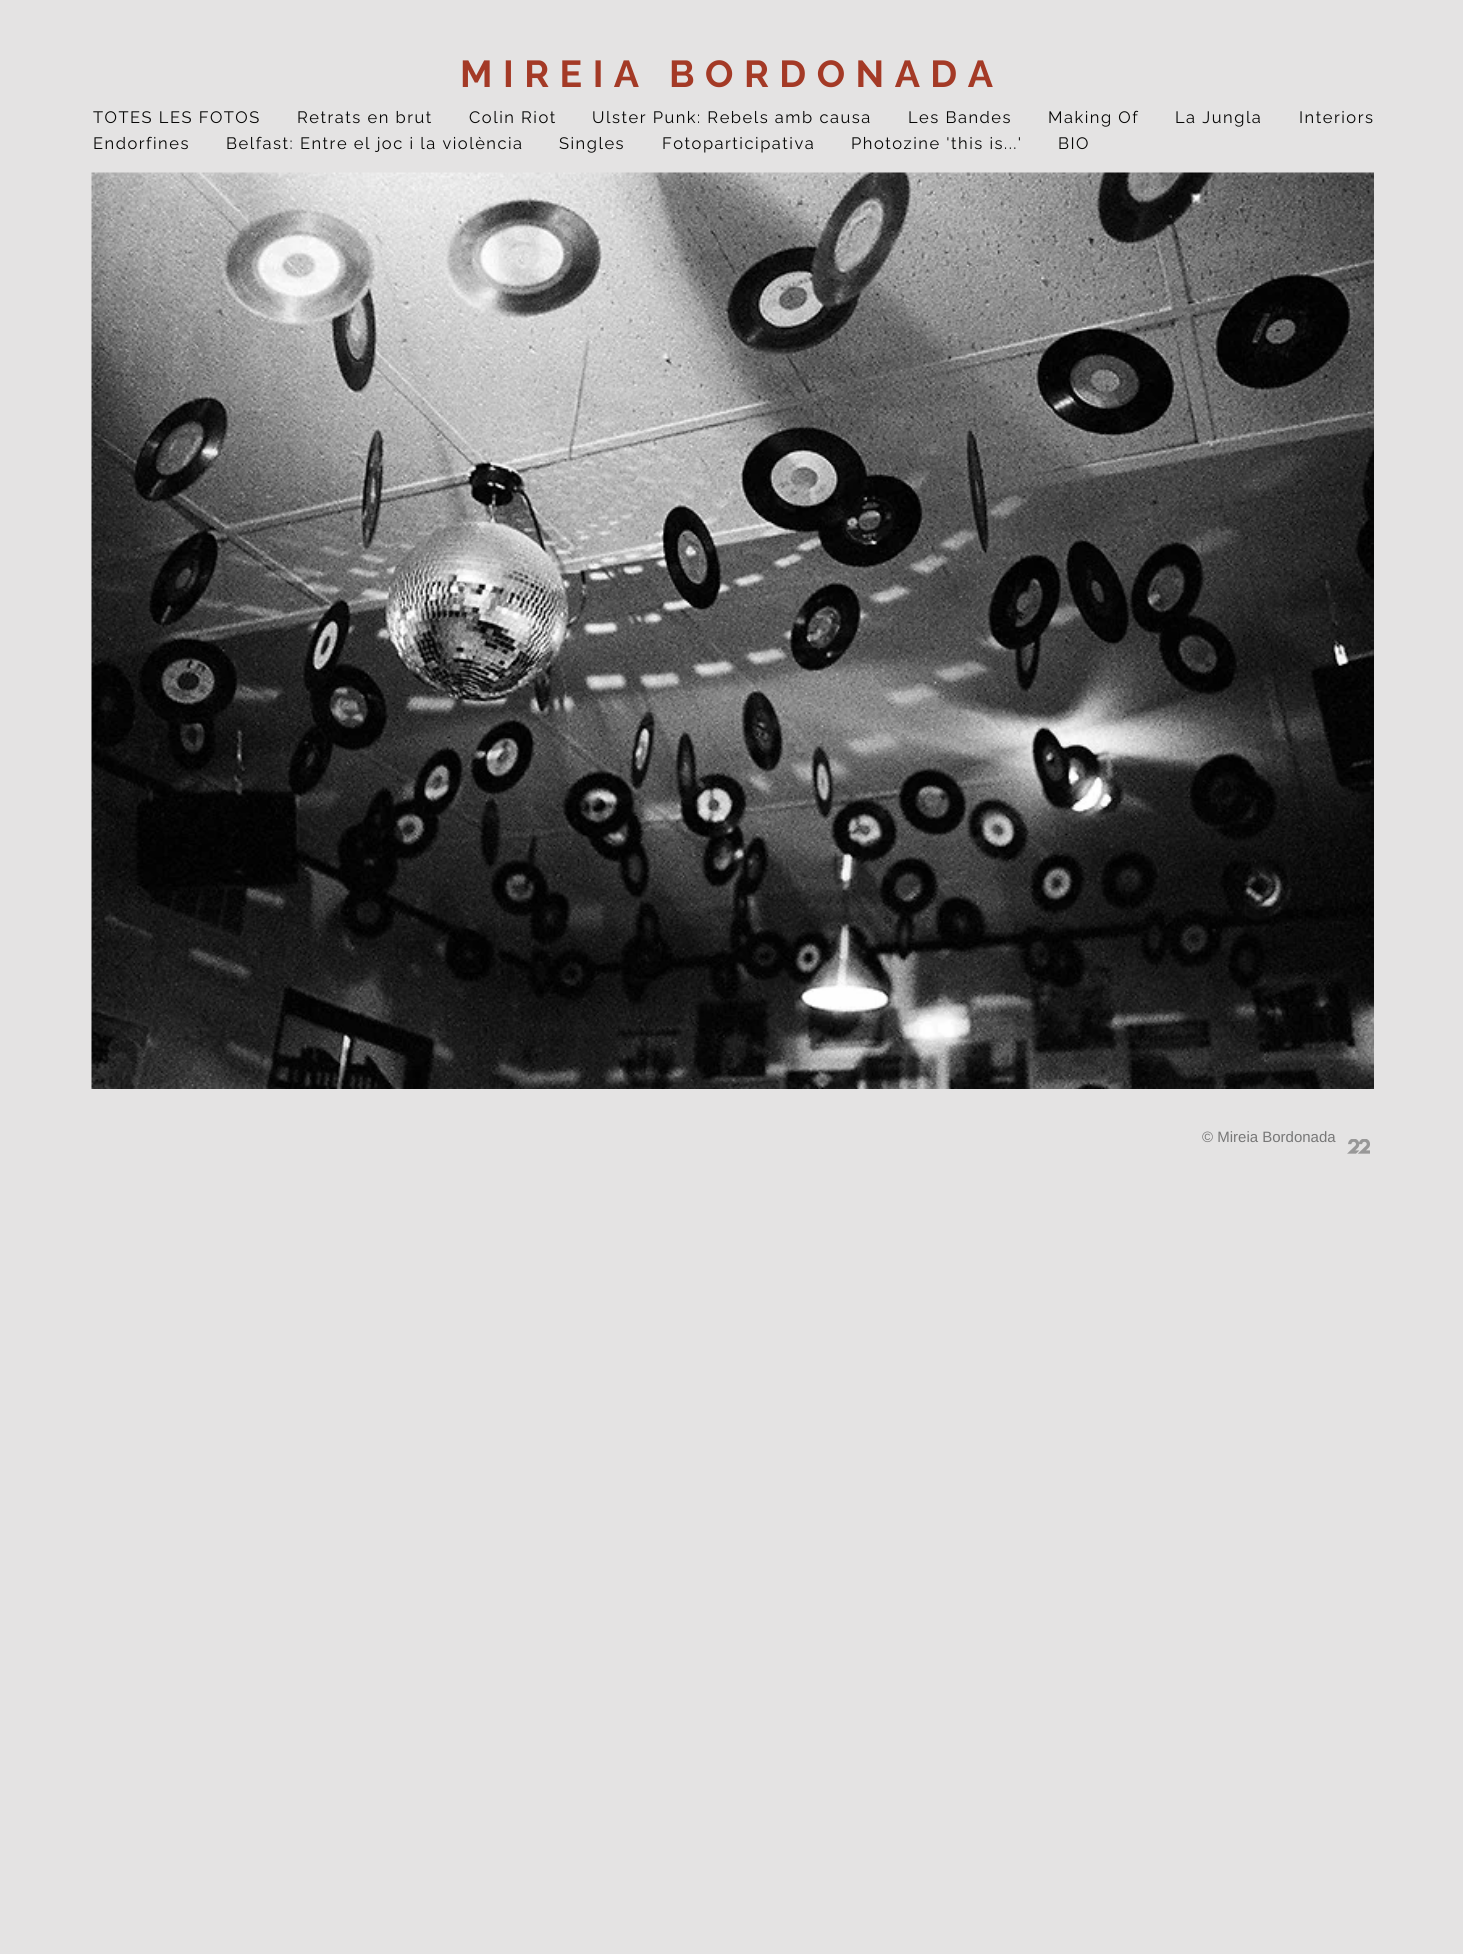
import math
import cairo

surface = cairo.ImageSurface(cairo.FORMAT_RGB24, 1463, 1954)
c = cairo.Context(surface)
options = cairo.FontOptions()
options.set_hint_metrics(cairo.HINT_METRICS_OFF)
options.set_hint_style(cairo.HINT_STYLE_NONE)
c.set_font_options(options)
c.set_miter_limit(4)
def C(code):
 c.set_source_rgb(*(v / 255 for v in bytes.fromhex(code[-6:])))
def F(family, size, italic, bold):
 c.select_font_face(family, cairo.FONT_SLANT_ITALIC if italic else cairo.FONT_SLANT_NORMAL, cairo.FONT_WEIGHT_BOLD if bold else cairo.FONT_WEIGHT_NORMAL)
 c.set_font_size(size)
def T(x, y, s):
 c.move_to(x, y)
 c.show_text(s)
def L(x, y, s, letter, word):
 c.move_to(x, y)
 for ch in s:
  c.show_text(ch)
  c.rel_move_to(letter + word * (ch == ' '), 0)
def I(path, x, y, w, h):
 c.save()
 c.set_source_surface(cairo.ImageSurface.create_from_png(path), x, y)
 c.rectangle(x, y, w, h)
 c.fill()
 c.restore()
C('e4e3e3')
c.paint()
F('Raleway',37.5,0,1)
C('a43a26')
L(460,87,'MIREIA BORDONADA',10.5,0)
F('Raleway',16.5,0,0)
C('070706')
L(93,123,'TOTES LES FOTOS',1.5,0)
L(297,123,'Retrats en brut',1.5,0)
L(469,123,'Colin Riot',1.5,0)
L(592,123,'Ulster Punk: Rebels amb causa',1.5,0)
L(908,123,'Les Bandes',1.5,0)
L(1048,123,'Making Of',1.5,0)
L(1175,123,'La Jungla',1.5,0)
L(1299,123,'Interiors',1.5,0)
L(93,149,'Endorfines',1.5,0)
L(226,149,'Belfast: Entre el joc i la violència',1.5,0)
L(559,149,'Singles',1.5,0)
L(662,149,'Fotoparticipativa',1.5,0)
L(851,149,'Photozine \'this is...\'',1.5,0)
L(1058,149,'BIO',1.5,0)
I('1.png',91,172,1283,917)
F('Liberation Sans',15,0,0)
C('777777')
T(1202,1142,'© Mireia Bordonada')
I('2.png',1347,1139,23,15)
surface.write_to_png('o.png')
